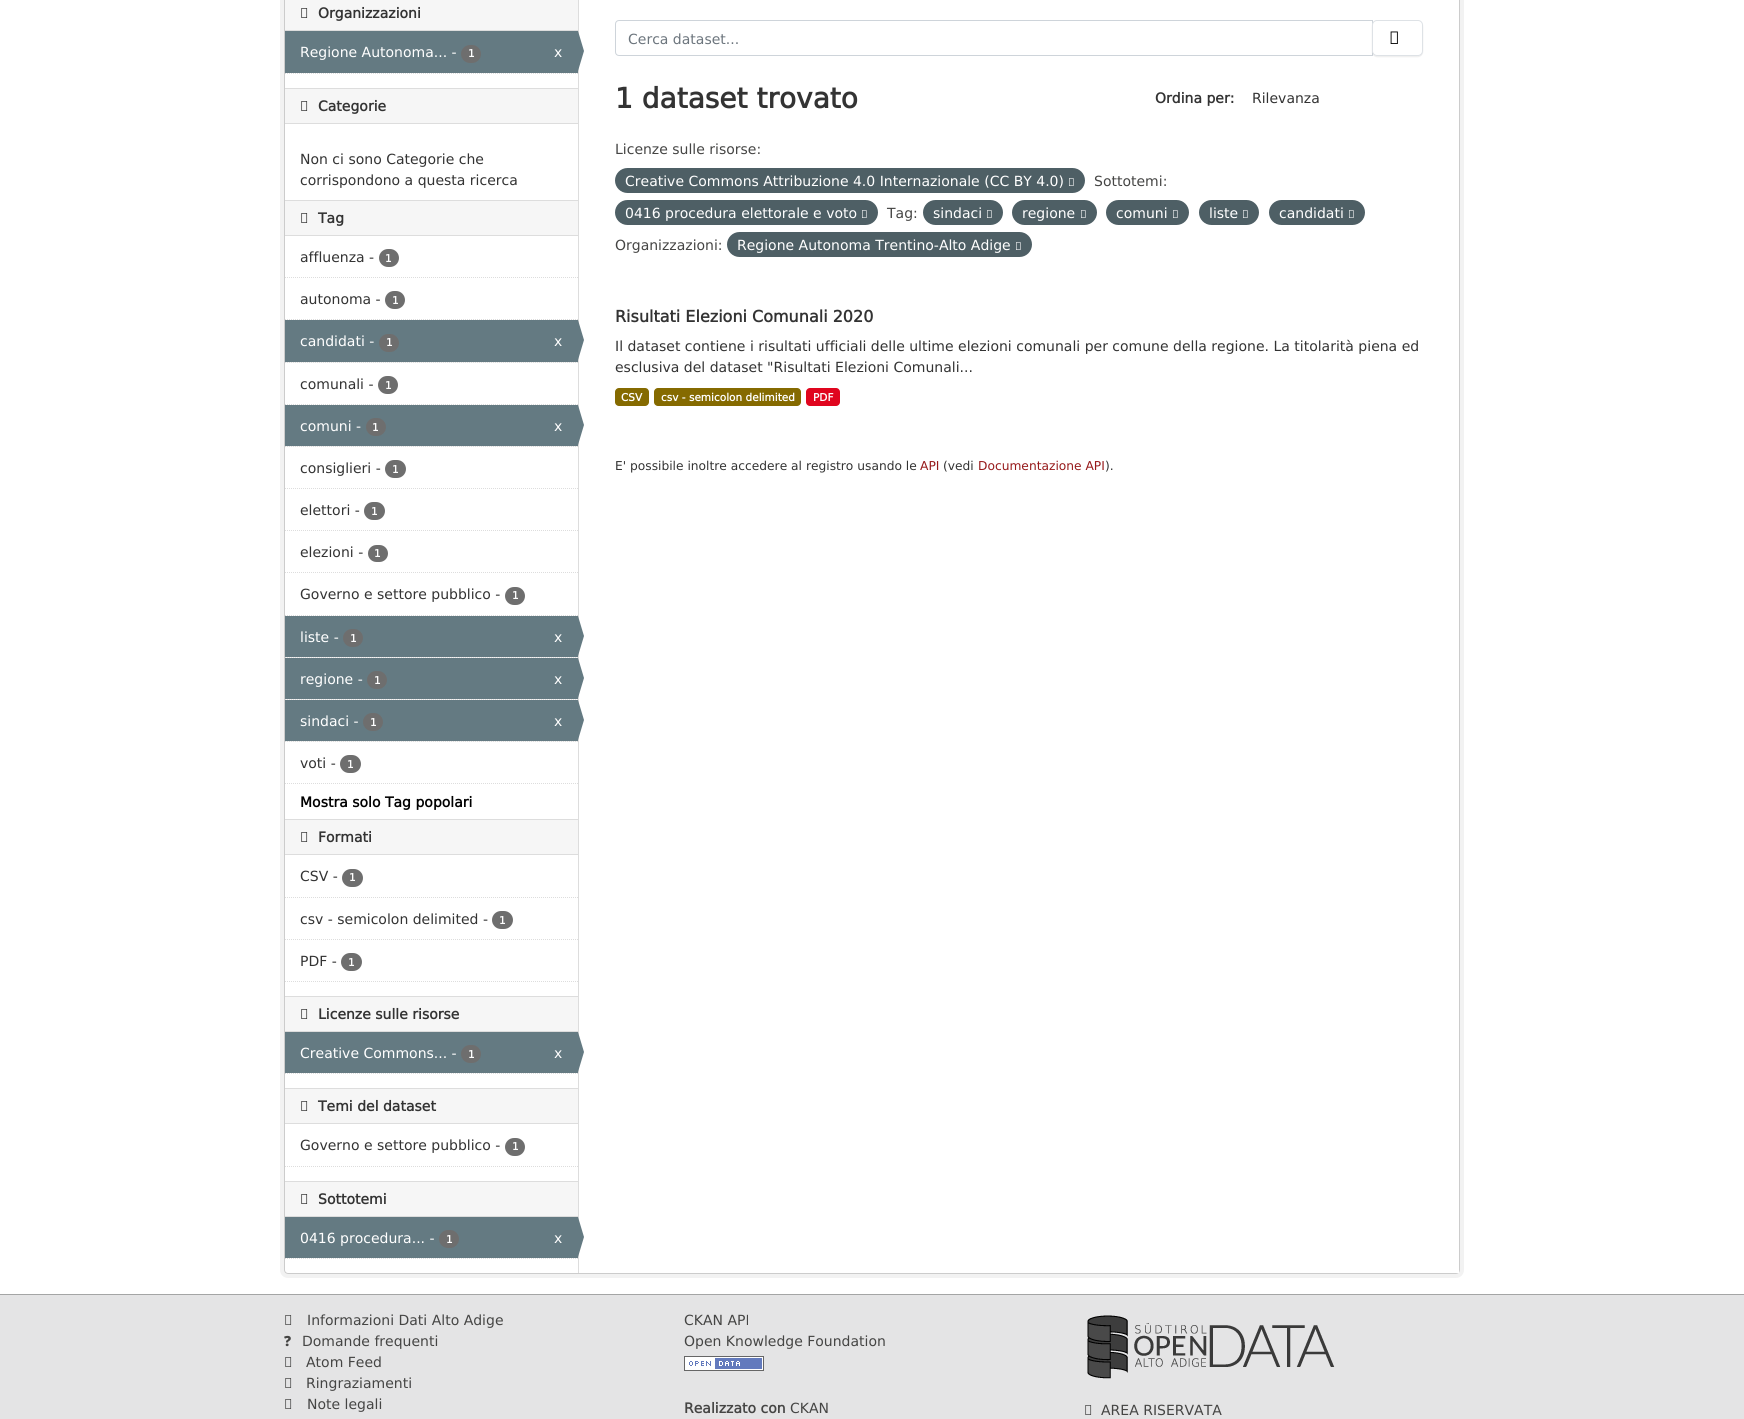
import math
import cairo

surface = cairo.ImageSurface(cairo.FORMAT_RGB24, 1744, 1419)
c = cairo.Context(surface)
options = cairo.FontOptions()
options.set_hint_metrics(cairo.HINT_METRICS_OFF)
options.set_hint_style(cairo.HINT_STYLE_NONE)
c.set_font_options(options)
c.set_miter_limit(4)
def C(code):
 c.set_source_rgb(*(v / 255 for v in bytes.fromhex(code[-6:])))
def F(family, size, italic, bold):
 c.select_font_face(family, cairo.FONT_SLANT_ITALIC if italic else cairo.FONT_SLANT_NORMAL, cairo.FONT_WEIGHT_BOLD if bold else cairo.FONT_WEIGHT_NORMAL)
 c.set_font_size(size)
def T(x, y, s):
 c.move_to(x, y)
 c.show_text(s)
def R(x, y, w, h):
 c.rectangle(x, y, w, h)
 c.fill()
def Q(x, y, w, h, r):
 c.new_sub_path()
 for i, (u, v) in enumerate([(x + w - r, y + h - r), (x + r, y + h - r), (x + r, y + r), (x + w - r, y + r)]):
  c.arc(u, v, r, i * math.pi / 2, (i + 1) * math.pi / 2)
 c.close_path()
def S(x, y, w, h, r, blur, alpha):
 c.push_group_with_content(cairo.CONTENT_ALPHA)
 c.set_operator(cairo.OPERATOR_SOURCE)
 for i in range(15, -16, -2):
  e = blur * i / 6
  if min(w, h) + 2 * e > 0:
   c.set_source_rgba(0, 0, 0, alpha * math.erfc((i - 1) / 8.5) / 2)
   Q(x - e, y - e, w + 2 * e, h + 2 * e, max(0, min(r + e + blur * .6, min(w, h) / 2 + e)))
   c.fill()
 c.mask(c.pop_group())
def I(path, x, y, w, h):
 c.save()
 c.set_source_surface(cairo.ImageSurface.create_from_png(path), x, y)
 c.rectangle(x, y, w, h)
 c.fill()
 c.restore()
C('e4e4e5')
c.paint()
C('ffffff')
R(0,0,1744,1294)
Q(282,-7,1180,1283,6)
C('f2f2f2')
c.set_line_width(4)
c.stroke()
C('ffffff')
Q(284.5,-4.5,1175,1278,3.5)
c.fill_preserve()
C('cccccc')
c.set_line_width(1)
c.stroke()
C('f6f6f6')
R(285,0,293,30)
C('dddddd')
R(285,30,293,1)
I('1.png',301,8,7,10)
F('DejaVu Sans',14,0,1)
C('333333')
T(318,18,'Organizzazioni')
C('647a82')
R(285,31,293,42)
F('DejaVu Sans',14,0,0)
C('ffffff')
T(300,57,'Regione Autonoma... -')
C('6e6e6e')
Q(461,45,20,18,9)
c.fill()
F('DejaVu Sans',10.5,0,1)
C('ffffff')
T(468,57,'1')
F('DejaVu Sans',14,0,0)
T(554,57,'x')
C('dddddd')
R(578,0,1,1273)
C('647a82')
c.new_path()
c.move_to(578,71)
c.line_to(578,31)
c.line_to(584,51)
c.close_path()
c.fill()
c.new_path()
c.move_to(285,73.5)
c.line_to(578,73.5)
C('dddddd')
c.set_dash([1,1])
c.stroke()
C('f6f6f6')
R(285,89,293,34)
C('dddddd')
R(285,88,293,1)
R(285,123,293,1)
I('1.png',301,101,7,10)
F('DejaVu Sans',14,0,1)
C('333333')
T(318,111,'Categorie')
F('DejaVu Sans',14,0,0)
T(300,164,'Non ci sono Categorie che')
T(300,185,'corrispondono a questa ricerca')
C('f6f6f6')
R(285,201,293,34)
C('dddddd')
R(285,200,293,1)
R(285,235,293,1)
I('1.png',301,213,7,10)
F('DejaVu Sans',14,0,1)
C('333333')
T(318,223,'Tag')
c.new_path()
c.move_to(285,277.5)
c.line_to(578,277.5)
C('dddddd')
c.stroke()
F('DejaVu Sans',14,0,0)
C('333333')
T(300,262,'affluenza -')
C('6e6e6e')
Q(379,249,20,18,9)
c.fill()
F('DejaVu Sans',10.5,0,1)
C('ffffff')
T(385,262,'1')
c.new_path()
c.move_to(285,319.5)
c.line_to(578,319.5)
C('dddddd')
c.stroke()
F('DejaVu Sans',14,0,0)
C('333333')
T(300,304,'autonoma -')
C('6e6e6e')
Q(385,291,20,18,9)
c.fill()
F('DejaVu Sans',10.5,0,1)
C('ffffff')
T(392,304,'1')
C('f6f6f6')
R(286,362,291,1)
c.new_path()
c.move_to(285,362.5)
c.line_to(578,362.5)
C('dddddd')
c.stroke()
C('647a82')
R(285,320,293,42)
F('DejaVu Sans',14,0,0)
C('ffffff')
T(300,346,'candidati -')
C('6e6e6e')
Q(379,334,20,18,9)
c.fill()
F('DejaVu Sans',10.5,0,1)
C('ffffff')
T(386,346,'1')
F('DejaVu Sans',14,0,0)
T(554,346,'x')
C('647a82')
c.new_path()
c.move_to(578,360)
c.line_to(578,320)
c.line_to(584,340)
c.close_path()
c.fill()
c.new_path()
c.move_to(285,404.5)
c.line_to(578,404.5)
C('dddddd')
c.stroke()
C('333333')
T(300,389,'comunali -')
C('6e6e6e')
Q(378,376,20,18,9)
c.fill()
F('DejaVu Sans',10.5,0,1)
C('ffffff')
T(385,389,'1')
C('f6f6f6')
R(286,446,291,1)
c.new_path()
c.move_to(285,446.5)
c.line_to(578,446.5)
C('dddddd')
c.stroke()
C('647a82')
R(285,405,293,41)
F('DejaVu Sans',14,0,0)
C('ffffff')
T(300,431,'comuni -')
C('6e6e6e')
Q(366,418,20,18,9)
c.fill()
F('DejaVu Sans',10.5,0,1)
C('ffffff')
T(372,431,'1')
F('DejaVu Sans',14,0,0)
T(554,431,'x')
C('647a82')
c.new_path()
c.move_to(578,445)
c.line_to(578,405)
c.line_to(584,425)
c.close_path()
c.fill()
c.new_path()
c.move_to(285,488.5)
c.line_to(578,488.5)
C('dddddd')
c.stroke()
C('333333')
T(300,473,'consiglieri -')
C('6e6e6e')
Q(385,460,21,18,9)
c.fill()
F('DejaVu Sans',10.5,0,1)
C('ffffff')
T(392,473,'1')
c.new_path()
c.move_to(285,530.5)
c.line_to(578,530.5)
C('dddddd')
c.stroke()
F('DejaVu Sans',14,0,0)
C('333333')
T(300,515,'elettori -')
C('6e6e6e')
Q(364,502,21,18,9)
c.fill()
F('DejaVu Sans',10.5,0,1)
C('ffffff')
T(371,515,'1')
c.new_path()
c.move_to(285,572.5)
c.line_to(578,572.5)
C('dddddd')
c.stroke()
F('DejaVu Sans',14,0,0)
C('333333')
T(300,557,'elezioni -')
C('6e6e6e')
Q(368,545,20,17,8.5)
c.fill()
F('DejaVu Sans',10.5,0,1)
C('ffffff')
T(374,557,'1')
c.new_path()
c.move_to(285,615.5)
c.line_to(578,615.5)
C('dddddd')
c.stroke()
F('DejaVu Sans',14,0,0)
C('333333')
T(300,599,'Governo e settore pubblico -')
C('6e6e6e')
Q(505,587,20,18,9)
c.fill()
F('DejaVu Sans',10.5,0,1)
C('ffffff')
T(512,599,'1')
C('f6f6f6')
R(286,657,291,1)
c.new_path()
c.move_to(285,657.5)
c.line_to(578,657.5)
C('dddddd')
c.stroke()
C('647a82')
R(285,616,293,41)
F('DejaVu Sans',14,0,0)
C('ffffff')
T(300,642,'liste -')
C('6e6e6e')
Q(343,629,20,18,9)
c.fill()
F('DejaVu Sans',10.5,0,1)
C('ffffff')
T(350,642,'1')
F('DejaVu Sans',14,0,0)
T(554,642,'x')
C('647a82')
c.new_path()
c.move_to(578,656)
c.line_to(578,616)
c.line_to(584,636)
c.close_path()
c.fill()
C('f6f6f6')
R(286,699,291,1)
c.new_path()
c.move_to(285,699.5)
c.line_to(578,699.5)
C('dddddd')
c.stroke()
C('647a82')
R(285,658,293,41)
C('ffffff')
T(300,684,'regione -')
C('6e6e6e')
Q(367,671,20,18,9)
c.fill()
F('DejaVu Sans',10.5,0,1)
C('ffffff')
T(374,684,'1')
F('DejaVu Sans',14,0,0)
T(554,684,'x')
C('647a82')
c.new_path()
c.move_to(578,698)
c.line_to(578,658)
c.line_to(584,678)
c.close_path()
c.fill()
C('f6f6f6')
R(286,741,291,1)
c.new_path()
c.move_to(285,741.5)
c.line_to(578,741.5)
C('dddddd')
c.stroke()
C('647a82')
R(285,700,293,41)
C('ffffff')
T(300,726,'sindaci -')
C('6e6e6e')
Q(363,713,20,18,9)
c.fill()
F('DejaVu Sans',10.5,0,1)
C('ffffff')
T(370,726,'1')
F('DejaVu Sans',14,0,0)
T(554,726,'x')
C('647a82')
c.new_path()
c.move_to(578,740)
c.line_to(578,700)
c.line_to(584,720)
c.close_path()
c.fill()
C('333333')
T(300,768,'voti -')
C('6e6e6e')
Q(340,755,21,18,9)
c.fill()
F('DejaVu Sans',10.5,0,1)
C('ffffff')
T(347,768,'1')
c.new_path()
c.move_to(285,783.5)
c.line_to(578,783.5)
C('dddddd')
c.stroke()
F('DejaVu Sans',14,0,1)
C('000000')
T(300,807,'Mostra solo Tag popolari')
C('f6f6f6')
R(285,820,293,34)
C('dddddd')
R(285,819,293,1)
R(285,854,293,1)
I('1.png',301,832,7,10)
C('333333')
T(318,842,'Formati')
c.new_path()
c.move_to(285,897.5)
c.line_to(578,897.5)
C('dddddd')
c.stroke()
F('DejaVu Sans',14,0,0)
C('333333')
T(300,881,'CSV -')
C('6e6e6e')
Q(342,869,21,18,9)
c.fill()
F('DejaVu Sans',10.5,0,1)
C('ffffff')
T(349,881,'1')
c.new_path()
c.move_to(285,939.5)
c.line_to(578,939.5)
C('dddddd')
c.stroke()
F('DejaVu Sans',14,0,0)
C('333333')
T(300,924,'csv - semicolon delimited -')
C('6e6e6e')
Q(492,911,21,18,9)
c.fill()
F('DejaVu Sans',10.5,0,1)
C('ffffff')
T(499,924,'1')
F('DejaVu Sans',14,0,0)
C('333333')
T(300,966,'PDF -')
C('6e6e6e')
Q(341,953,21,18,9)
c.fill()
F('DejaVu Sans',10.5,0,1)
C('ffffff')
T(348,966,'1')
c.new_path()
c.move_to(285,981.5)
c.line_to(578,981.5)
C('dddddd')
c.stroke()
C('f6f6f6')
R(285,997,293,34)
C('dddddd')
R(285,996,293,1)
R(285,1031,293,1)
I('1.png',301,1009,7,10)
F('DejaVu Sans',14,0,1)
C('333333')
T(318,1019,'Licenze sulle risorse')
C('647a82')
R(285,1032,293,41)
F('DejaVu Sans',14,0,0)
C('ffffff')
T(300,1058,'Creative Commons... -')
C('6e6e6e')
Q(461,1045,20,18,9)
c.fill()
F('DejaVu Sans',10.5,0,1)
C('ffffff')
T(468,1058,'1')
F('DejaVu Sans',14,0,0)
T(554,1058,'x')
C('647a82')
c.new_path()
c.move_to(578,1072)
c.line_to(578,1032)
c.line_to(584,1052)
c.close_path()
c.fill()
c.new_path()
c.move_to(285,1073.5)
c.line_to(578,1073.5)
C('dddddd')
c.stroke()
C('f6f6f6')
R(285,1089,293,34)
C('dddddd')
R(285,1088,293,1)
R(285,1123,293,1)
I('1.png',301,1101,7,10)
F('DejaVu Sans',14,0,1)
C('333333')
T(318,1111,'Temi del dataset')
F('DejaVu Sans',14,0,0)
T(300,1150,'Governo e settore pubblico -')
C('6e6e6e')
Q(505,1138,20,18,9)
c.fill()
F('DejaVu Sans',10.5,0,1)
C('ffffff')
T(512,1150,'1')
c.new_path()
c.move_to(285,1166.5)
c.line_to(578,1166.5)
C('dddddd')
c.stroke()
C('f6f6f6')
R(285,1182,293,34)
C('dddddd')
R(285,1181,293,1)
R(285,1216,293,1)
I('1.png',301,1194,7,10)
F('DejaVu Sans',14,0,1)
C('333333')
T(318,1204,'Sottotemi')
C('647a82')
R(285,1217,293,41)
F('DejaVu Sans',14,0,0)
C('ffffff')
T(300,1243,'0416 procedura... -')
C('6e6e6e')
Q(439,1230,20,18,9)
c.fill()
F('DejaVu Sans',10.5,0,1)
C('ffffff')
T(446,1243,'1')
F('DejaVu Sans',14,0,0)
T(554,1243,'x')
C('647a82')
c.new_path()
c.move_to(578,1257)
c.line_to(578,1217)
c.line_to(584,1237)
c.close_path()
c.fill()
c.new_path()
c.move_to(285,1258.5)
c.line_to(578,1258.5)
C('dddddd')
c.stroke()
C('ffffff')
R(1456,1270,3,3)
c.new_path()
c.move_to(619,20.5)
c.line_to(1372.5,20.5)
c.line_to(1372.5,55.5)
c.line_to(619,55.5)
c.curve_to(617,55.5,615.5,54,615.5,52)
c.line_to(615.5,24)
c.curve_to(615.5,22,617,20.5,619,20.5)
c.close_path()
C('ced4da')
c.set_dash([])
c.stroke()
C('6c757d')
T(628,44,'Cerca dataset...')
C('000000')
S(1372,21,51,36,5,.5,.07)
C('ffffff')
Q(1372.5,20.5,50,35,4.5)
c.fill_preserve()
C('dee2e6')
c.stroke()
I('2.png',1390,31,8,13)
F('DejaVu Sans',28,0,1)
C('333333')
T(615,108,'1 dataset trovato')
F('DejaVu Sans',14,0,1)
T(1155,103,'Ordina per:')
F('DejaVu Sans',14,0,0)
T(1252,103,'Rilevanza')
C('454544')
T(615,154,'Licenze sulle risorse:')
C('4e5f65')
Q(615,168,470,25,12.5)
c.fill()
C('ffffff')
T(625,186,'Creative Commons Attribuzione 4.0 Internazionale (CC BY 4.0)')
I('3.png',1069,178,5,8)
C('454544')
T(1094,186,'Sottotemi:')
C('4e5f65')
Q(615,200,263,25,12.5)
c.fill()
C('ffffff')
T(625,218,'0416 procedura elettorale e voto')
I('3.png',862,210,5,8)
C('454544')
T(887,218,'Tag:')
C('4e5f65')
Q(923,200,80,25,12.5)
c.fill()
C('ffffff')
T(933,218,'sindaci')
I('3.png',987,210,5,8)
C('4e5f65')
Q(1012,200,85,25,12.5)
c.fill()
C('ffffff')
T(1022,218,'regione')
I('3.png',1081,210,5,8)
C('4e5f65')
Q(1106,200,83,25,12.5)
c.fill()
C('ffffff')
T(1116,218,'comuni')
I('3.png',1173,210,5,8)
C('4e5f65')
Q(1199,200,60,25,12.5)
c.fill()
C('ffffff')
T(1209,218,'liste')
I('3.png',1243,210,5,8)
C('4e5f65')
Q(1269,200,96,25,12.5)
c.fill()
C('ffffff')
T(1279,218,'candidati')
I('3.png',1349,210,5,8)
C('454544')
T(615,250,'Organizzazioni:')
C('4e5f65')
Q(727,232,305,25,12.5)
c.fill()
C('ffffff')
T(737,250,'Regione Autonoma Trentino-Alto Adige')
I('3.png',1016,242,5,8)
F('DejaVu Sans',16,0,1)
C('333333')
T(615,322,'Risultati Elezioni Comunali 2020')
F('DejaVu Sans',14,0,0)
T(615,351,'Il dataset contiene i risultati ufficiali delle ultime elezioni comunali per comune della regione. La titolarità piena ed')
T(615,372,'esclusiva del dataset "Risultati Elezioni Comunali...')
C('856a00')
Q(615,388,34,18,4)
c.fill()
F('DejaVu Sans',10.5,0,1)
C('ffffff')
T(621,401,'CSV')
C('856a00')
Q(654,388,147,18,4)
c.fill()
C('ffffff')
T(661,401,'csv - semicolon delimited')
C('e0051e')
Q(806,388,34,18,4)
c.fill()
C('ffffff')
T(813,401,'PDF')
F('DejaVu Sans',12.25,0,0)
C('333333')
T(615,470,'E\' possibile inoltre accedere al registro usando le')
C('96191a')
T(920,470,'API')
C('333333')
T(943,470,'(vedi')
C('96191a')
T(978,470,'Documentazione API')
C('333333')
T(1105,470,').')
C('a4a5a5')
R(0,1294,1744,1)
I('4.png',285,1315,7,10)
F('DejaVu Sans',14,0,0)
C('454544')
T(307,1325,'Informazioni Dati Alto Adige')
F('Noto Sans Black',14,0,0)
T(284,1346,'?')
F('DejaVu Sans',14,0,0)
T(302,1346,'Domande frequenti')
I('4.png',285,1357,7,10)
T(306,1367,'Atom Feed')
I('4.png',285,1378,7,10)
T(306,1388,'Ringraziamenti')
I('4.png',285,1399,7,10)
T(307,1409,'Note legali')
T(684,1325,'CKAN API')
T(684,1346,'Open Knowledge Foundation')
I('5.png',684,1356,80,15)
F('DejaVu Sans',14,0,1)
T(684,1413,'Realizzato con')
F('DejaVu Sans',14,0,0)
T(790,1413,'CKAN')
I('6.png',1087,1315,248,64)
I('4.png',1085,1405,7,10)
T(1101,1415,'AREA RISERVATA')
surface.write_to_png('o.png')
